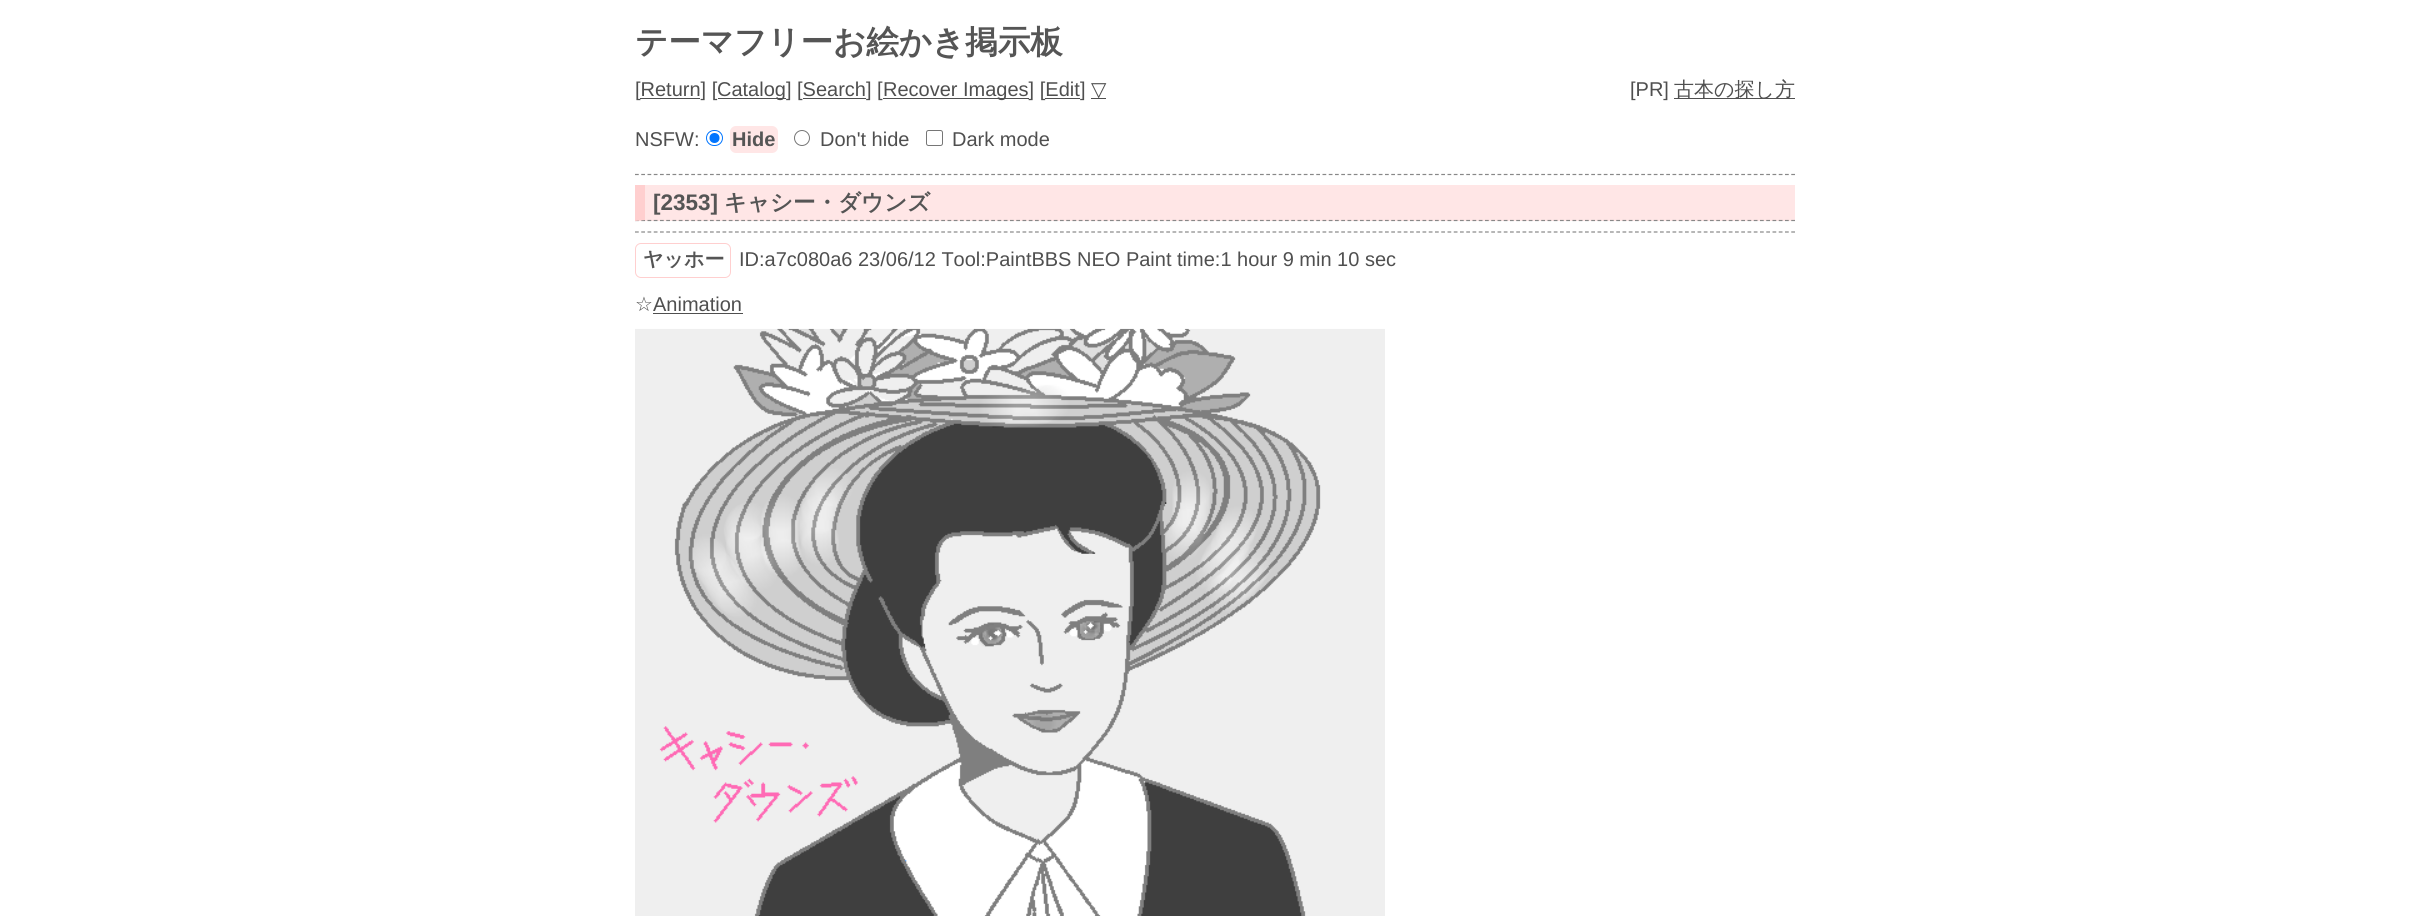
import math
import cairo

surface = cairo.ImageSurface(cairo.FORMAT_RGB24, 2430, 916)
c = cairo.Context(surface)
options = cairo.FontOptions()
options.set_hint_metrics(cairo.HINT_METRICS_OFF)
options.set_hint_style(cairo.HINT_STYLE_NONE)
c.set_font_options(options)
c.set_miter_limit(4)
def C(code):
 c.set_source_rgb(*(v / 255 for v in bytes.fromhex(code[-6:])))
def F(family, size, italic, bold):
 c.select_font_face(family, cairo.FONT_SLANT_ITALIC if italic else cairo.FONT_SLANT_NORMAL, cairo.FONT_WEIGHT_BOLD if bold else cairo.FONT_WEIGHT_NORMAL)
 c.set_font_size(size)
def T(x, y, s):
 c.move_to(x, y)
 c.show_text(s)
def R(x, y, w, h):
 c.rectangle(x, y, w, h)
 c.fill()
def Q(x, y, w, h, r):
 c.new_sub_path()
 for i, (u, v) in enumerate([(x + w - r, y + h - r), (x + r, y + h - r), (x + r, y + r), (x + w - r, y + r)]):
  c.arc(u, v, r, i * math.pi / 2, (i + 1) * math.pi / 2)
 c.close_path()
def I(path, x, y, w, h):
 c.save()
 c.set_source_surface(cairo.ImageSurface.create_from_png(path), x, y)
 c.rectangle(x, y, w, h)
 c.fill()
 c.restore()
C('ffffff')
c.paint()
F('WenQuanYi Zen Hei',32.5,0,1)
C('555555')
T(635,53,'テーマフリーお絵かき掲示板')
F('Liberation Sans',20,0,0)
C('4f4f4f')
T(635,96,'[Return] [')
R(640,98,60,1)
R(718,98,68,1)
T(717,96,'Catalog] [Search] [')
R(883,98,146,1)
T(883,96,'Recover Images] [Edit')
R(1045,98,35,1)
T(1080,96,']')
R(1091,98,15,1)
F('DejaVu Sans',20,0,0)
T(1091,96,'▽')
R(803,98,63,1)
F('Liberation Sans',20,0,0)
T(1630,96,'[PR]')
R(1674,98,121,1)
F('WenQuanYi Zen Hei Medium',20,0,0)
T(1674,96,'古本の探し方')
F('Liberation Sans',20,0,0)
T(635,146,'NSFW:')
Q(706.5,130.5,16,15,7.5)
C('0075ff')
c.set_line_width(1)
c.stroke()
c.arc(714.5,138,5,0,2 * math.pi)
c.fill()
C('ffe6e6')
Q(730,126,48,27,6)
c.fill()
F('Liberation Sans',20,0,1)
C('555555')
T(732,146,'Hide')
c.new_path()
c.arc(802,138,7.5,0,2 * math.pi)
C('767676')
c.stroke()
F('Liberation Sans',20,0,0)
C('4f4f4f')
T(820,146,'Don\'t hide')
Q(926.5,130.5,16,15,2)
C('767676')
c.stroke()
C('4f4f4f')
T(952,146,'Dark mode')
c.new_path()
c.move_to(635,174.5)
c.line_to(1795,174.5)
C('888888')
c.set_line_width(1.2)
c.set_dash([3.75,2.5])
c.stroke()
C('ffe6e6')
R(638,185,1157,36)
c.new_path()
c.move_to(635,220.5)
c.line_to(1795,220.5)
C('888888')
c.stroke()
C('ffcfcf')
c.new_path()
c.move_to(635,221)
c.line_to(635,185)
c.line_to(645,185)
c.line_to(645,220)
c.close_path()
c.fill()
F('Liberation Sans',22.5,0,1)
C('555555')
T(653,210,'[2353]')
F('WenQuanYi Zen Hei',22.5,0,1)
T(724,210,'キャシー・ダウンズ')
c.new_path()
c.move_to(635,232)
c.line_to(1795,232)
C('888888')
c.stroke()
Q(635.5,243.5,95,34,5.5)
C('ffcfcf')
c.set_line_width(1)
c.set_dash([])
c.stroke()
F('WenQuanYi Zen Hei',20,0,1)
C('555555')
T(643,266,'ヤッホー')
F('Liberation Sans',20,0,0)
C('4f4f4f')
T(739,266,'ID:a7c080a6 23/06/12 Tool:PaintBBS NEO Paint time:1 hour 9 min 10 sec')
F('DejaVu Sans',20,0,0)
T(635,311,'☆')
F('Liberation Sans',20,0,0)
T(653,311,'Animation')
R(653,313,90,1)
I('1.png',635,328,750,588)
surface.write_to_png('o.png')
